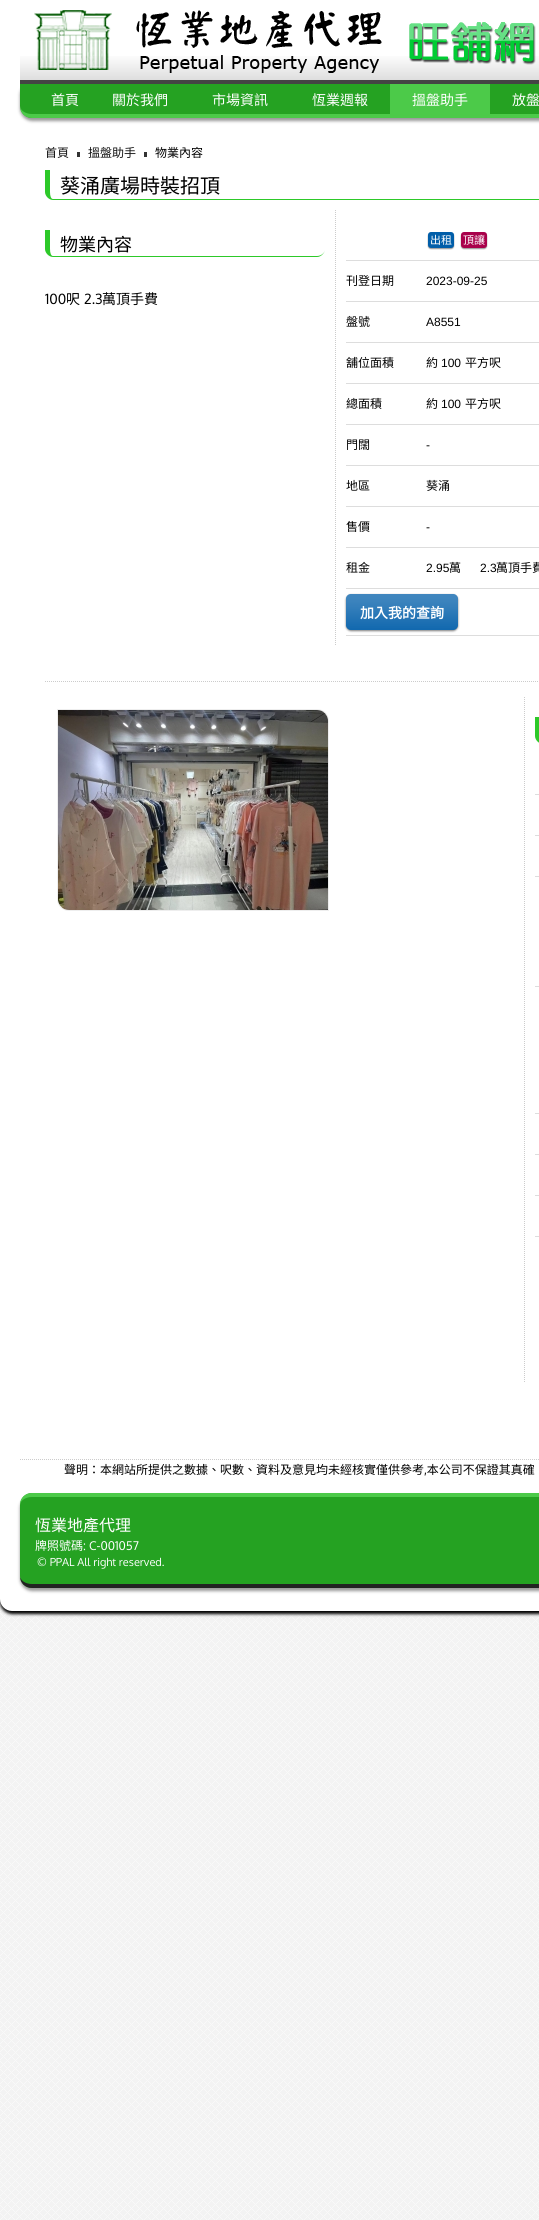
import math
import cairo

surface = cairo.ImageSurface(cairo.FORMAT_RGB24, 539, 2220)
c = cairo.Context(surface)
options = cairo.FontOptions()
options.set_hint_metrics(cairo.HINT_METRICS_OFF)
options.set_hint_style(cairo.HINT_STYLE_NONE)
c.set_font_options(options)
c.set_miter_limit(4)
def C(code):
 c.set_source_rgb(*(v / 255 for v in bytes.fromhex(code[-6:])))
def F(family, size, italic, bold):
 c.select_font_face(family, cairo.FONT_SLANT_ITALIC if italic else cairo.FONT_SLANT_NORMAL, cairo.FONT_WEIGHT_BOLD if bold else cairo.FONT_WEIGHT_NORMAL)
 c.set_font_size(size)
def T(x, y, s):
 c.move_to(x, y)
 c.show_text(s)
def R(x, y, w, h):
 c.rectangle(x, y, w, h)
 c.fill()
def Q(x, y, w, h, r):
 c.new_sub_path()
 for i, (u, v) in enumerate([(x + w - r, y + h - r), (x + r, y + h - r), (x + r, y + r), (x + w - r, y + r)]):
  c.arc(u, v, r, i * math.pi / 2, (i + 1) * math.pi / 2)
 c.close_path()
def S(x, y, w, h, r, blur, alpha):
 c.push_group_with_content(cairo.CONTENT_ALPHA)
 c.set_operator(cairo.OPERATOR_SOURCE)
 for i in range(15, -16, -2):
  e = blur * i / 6
  if min(w, h) + 2 * e > 0:
   c.set_source_rgba(0, 0, 0, alpha * math.erfc((i - 1) / 8.5) / 2)
   Q(x - e, y - e, w + 2 * e, h + 2 * e, max(0, min(r + e + blur * .6, min(w, h) / 2 + e)))
   c.fill()
 c.mask(c.pop_group())
def I(path, x, y, w, h):
 c.save()
 c.set_source_surface(cairo.ImageSurface.create_from_png(path), x, y)
 c.rectangle(x, y, w, h)
 c.fill()
 c.restore()
C('ffffff')
c.paint()
I('1.png',0,1599,539,621)
C('000000')
S(0,3,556,1611,12,1.5,1)
C('ffffff')
c.new_path()
c.move_to(0,0)
c.line_to(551,0)
c.line_to(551,1599)
c.curve_to(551,1605.5,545.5,1611,539,1611)
c.line_to(12,1611)
c.curve_to(5.5,1611,0,1605.5,0,1599)
c.close_path()
c.fill()
gradient = cairo.LinearGradient(470,80,470,0)
gradient.add_color_stop_rgba(0,0.871,0.871,0.871,1)
gradient.add_color_stop_rgba(.33,1,1,1,1)
gradient.add_color_stop_rgba(1,1,1,1,1)
c.set_source(gradient)
R(20,56,519,24)
I('2.png',34,10,502,63)
C('999999')
S(20,83,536,38,12,1.5,1)
C('25a222')
c.new_path()
c.move_to(20,80)
c.line_to(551,80)
c.line_to(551,106)
c.curve_to(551,112.5,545.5,118,539,118)
c.line_to(32,118)
c.curve_to(25.5,118,20,112.5,20,106)
c.close_path()
c.fill()
C('444444')
R(20,80,519,4)
C('4cca49')
c.new_path()
c.move_to(32,118)
c.line_to(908,118)
c.curve_to(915,118,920,113,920,106)
c.curve_to(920,110,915,114,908,114)
c.line_to(32,114)
c.curve_to(25,114,20,110,20,106)
c.curve_to(20,113,25,118,32,118)
c.close_path()
c.fill()
F('Noto Sans CJK HK',14,0,0)
C('ffffff')
T(51,105,'首頁')
T(112,105,'關於我們')
T(212,105,'市場資訊')
T(312,105,'恆業週報')
C('4cca49')
R(390,84,100,30)
C('ffffff')
T(412,105,'搵盤助手')
T(512,105,'放盤')
F('Noto Sans CJK HK',12,0,0)
C('111111')
T(45,157,'首頁')
C('333333')
R(77,152,3,5)
C('111111')
T(88,157,'搵盤助手')
C('333333')
R(144,152,3,5)
C('000000')
T(155,157,'物業內容')
C('2dc929')
c.set_fill_rule(cairo.FILL_RULE_EVEN_ODD)
c.new_path()
c.move_to(45,170)
c.line_to(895,170)
c.line_to(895,192)
c.curve_to(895,196,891,200,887,200)
c.line_to(53,200)
c.curve_to(49,200,45,196,45,192)
c.close_path()
c.move_to(50,170)
c.line_to(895,170)
c.line_to(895,192)
c.curve_to(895,196,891,199,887,199)
c.line_to(53,199)
c.curve_to(51,199,50,196,50,192)
c.close_path()
c.fill()
F('Noto Sans CJK HK',20,0,0)
C('000000')
T(60,193,'葵涌廣場時裝招頂')
C('2dc929')
c.new_path()
c.move_to(45,230)
c.line_to(325,230)
c.line_to(325,249)
c.curve_to(325,253,321,257,317,257)
c.line_to(53,257)
c.curve_to(49,257,45,253,45,249)
c.close_path()
c.move_to(50,230)
c.line_to(325,230)
c.line_to(325,249)
c.curve_to(325,253,321,256,317,256)
c.line_to(53,256)
c.curve_to(51,256,50,253,50,249)
c.close_path()
c.fill()
F('Noto Sans CJK HK',18,0,0)
C('000000')
T(60,251,'物業內容')
F('Oxygen',14,0,0)
T(45,304,'100')
F('Noto Sans CJK HK',14,0,0)
T(66,304,'呎')
F('Oxygen',14,0,0)
T(84,304,'2.3')
F('Noto Sans CJK HK',14,0,0)
T(102,304,'萬頂手費')
c.new_path()
c.move_to(335.5,210)
c.line_to(335.5,646)
C('cccccc')
c.set_line_width(1)
c.set_dash([1,1])
c.stroke()
C('dddddd')
R(346,260,193,1)
C('999999')
S(428,233,26,16,3,.5,1)
C('015ea9')
Q(428,232,26,16,3)
c.fill()
F('Noto Sans CJK HK',11,0,0)
C('ffffff')
T(430,244,'出租')
C('999999')
S(461,233,26,16,3,.5,1)
C('a9014b')
Q(461,232,26,16,3)
c.fill()
C('ffffff')
T(463,244,'頂讓')
F('Noto Sans CJK HK',12,0,0)
C('000000')
T(346,285,'刊登日期')
C('dddddd')
R(346,301,193,1)
F('Liberation Sans',12,0,0)
C('000000')
T(426,285,'2023-09-25')
F('Noto Sans CJK HK',12,0,0)
T(346,326,'盤號')
C('dddddd')
R(346,342,193,1)
F('Liberation Sans',12,0,0)
C('000000')
T(426,326,'A8551')
F('Noto Sans CJK HK',12,0,0)
T(346,367,'舖位面積')
C('dddddd')
R(346,383,193,1)
C('000000')
T(426,367,'約')
F('Liberation Sans',12,0,0)
T(441,367,'100')
F('Noto Sans CJK HK',12,0,0)
T(465,367,'平方呎')
T(346,408,'總面積')
C('dddddd')
R(346,424,193,1)
C('000000')
T(426,408,'約')
F('Liberation Sans',12,0,0)
T(441,408,'100')
F('Noto Sans CJK HK',12,0,0)
T(465,408,'平方呎')
T(346,449,'門闊')
C('dddddd')
R(346,465,193,1)
F('Liberation Sans',12,0,0)
C('000000')
T(426,449,'-')
F('Noto Sans CJK HK',12,0,0)
T(346,490,'地區')
C('dddddd')
R(346,506,193,1)
C('000000')
T(426,490,'葵涌')
T(346,531,'售價')
C('dddddd')
R(346,547,193,1)
F('Liberation Sans',12,0,0)
C('000000')
T(426,531,'-')
F('Noto Sans CJK HK',12,0,0)
T(346,572,'租金')
C('dddddd')
R(346,588,193,1)
F('Liberation Sans',12,0,0)
C('000000')
T(426,572,'2.95')
F('Noto Sans CJK HK',12,0,0)
T(449,572,'萬')
F('Liberation Sans',12,0,0)
T(480,572,'2.3')
F('Noto Sans CJK HK',12,0,0)
T(496,572,'萬頂手費')
C('dddddd')
R(346,635,193,1)
C('000000')
S(346,595,112,36,5,1,.5)
C('015ea9')
Q(346,594,112,36,5)
c.fill()
I('3.png',346,594,112,36)
F('Noto Sans CJK HK',14,0,1)
C('ffffff')
T(360,618,'加入我的查詢')
c.new_path()
c.move_to(45,681.5)
c.line_to(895,681.5)
C('cccccc')
c.stroke()
c.new_path()
c.move_to(57.5,709.5)
c.line_to(317,709.5)
c.curve_to(323.5,709.5,328.5,714.5,328.5,721)
c.line_to(328.5,910.5)
c.line_to(69,910.5)
c.curve_to(62.5,910.5,57.5,905.5,57.5,899)
c.close_path()
C('eeeeee')
c.set_dash([])
c.stroke()
I('4.png',58,710,270,200)
c.new_path()
c.move_to(524.5,697)
c.line_to(524.5,1383)
C('cccccc')
c.set_dash([1,1])
c.stroke()
C('2dc929')
c.new_path()
c.move_to(535,717)
c.line_to(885,717)
c.line_to(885,736)
c.curve_to(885,740,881,744,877,744)
c.line_to(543,744)
c.curve_to(539,744,535,740,535,736)
c.close_path()
c.move_to(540,717)
c.line_to(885,717)
c.line_to(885,736)
c.curve_to(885,740,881,743,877,743)
c.line_to(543,743)
c.curve_to(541,743,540,740,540,736)
c.close_path()
c.fill()
C('dddddd')
R(535,794,4,1)
R(535,835,4,1)
R(535,876,4,1)
R(535,986,4,1)
R(535,1113,4,1)
R(535,1154,4,1)
R(535,1195,4,1)
R(535,1236,4,1)
c.new_path()
c.move_to(20,1459.5)
c.line_to(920,1459.5)
C('cccccc')
c.stroke()
F('Noto Sans CJK HK',12,0,0)
C('000000')
T(64,1474,'聲明：本網站所提供之數據、呎數、資料及意見均未經核實僅供參考 本公司不保證其真確')
F('Oxygen',12,0,0)
T(424,1474,',')
C('999999')
S(20,1496,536,95,12,1.5,1)
C('25a222')
Q(20,1493,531,95,12)
c.fill()
C('4cca49')
c.set_fill_rule(cairo.FILL_RULE_WINDING)
c.new_path()
c.move_to(32,1493)
c.curve_to(25,1493,20,1498,20,1505)
c.curve_to(20,1501,25,1497,32,1497)
c.line_to(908,1497)
c.curve_to(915,1497,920,1501,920,1505)
c.curve_to(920,1498,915,1493,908,1493)
c.close_path()
c.fill()
C('222222')
c.new_path()
c.move_to(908,1588)
c.curve_to(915,1588,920,1583,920,1576)
c.curve_to(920,1580,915,1584,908,1584)
c.line_to(32,1584)
c.curve_to(25,1584,20,1580,20,1576)
c.curve_to(20,1583,25,1588,32,1588)
c.close_path()
c.fill()
F('Noto Sans CJK HK',16,0,0)
C('ffffff')
T(35,1531,'恆業地產代理')
F('Noto Sans CJK HK',12,0,0)
T(35,1550,'牌照號碼')
F('Oxygen',12,0,0)
T(83,1550,': C-001057')
F('Oxygen',11,0,0)
T(37,1566,'© PPAL All right reserved.')
surface.write_to_png('o.png')
